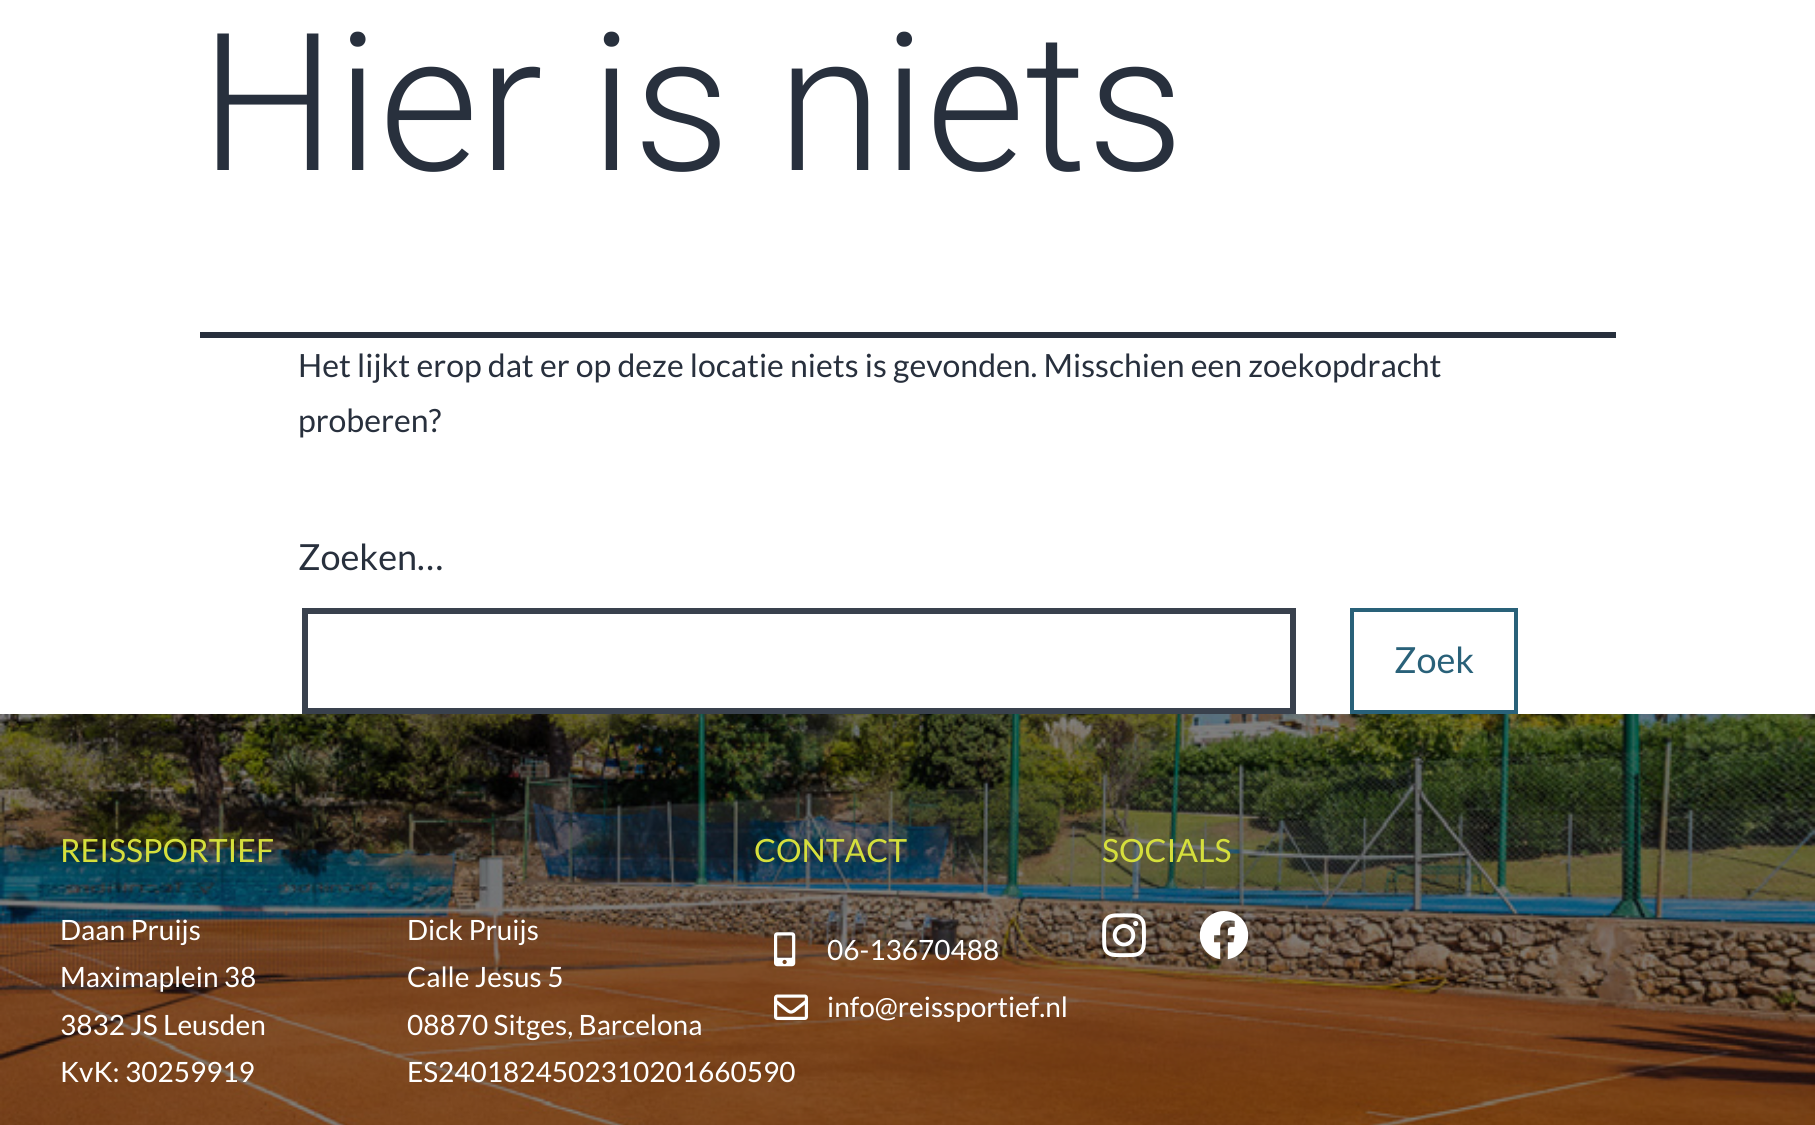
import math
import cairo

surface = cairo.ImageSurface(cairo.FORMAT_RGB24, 1815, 1125)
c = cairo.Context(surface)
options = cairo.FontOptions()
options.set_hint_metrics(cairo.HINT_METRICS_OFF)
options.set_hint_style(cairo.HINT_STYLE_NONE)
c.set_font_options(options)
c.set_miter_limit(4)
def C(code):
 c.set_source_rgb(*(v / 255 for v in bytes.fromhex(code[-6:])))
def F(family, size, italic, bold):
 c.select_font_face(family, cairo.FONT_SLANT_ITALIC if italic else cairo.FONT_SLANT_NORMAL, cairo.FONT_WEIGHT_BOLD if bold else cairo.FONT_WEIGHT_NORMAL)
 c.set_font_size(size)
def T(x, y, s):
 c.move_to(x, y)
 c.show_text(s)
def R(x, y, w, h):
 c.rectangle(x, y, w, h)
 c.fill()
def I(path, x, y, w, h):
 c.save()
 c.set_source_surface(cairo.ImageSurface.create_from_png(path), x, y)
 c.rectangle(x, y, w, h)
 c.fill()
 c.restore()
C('ffffff')
c.paint()
C('28303d')
R(200,332,1416,6)
F('Roboto Light',192,0,0)
T(200,170,'Hier is niets')
F('Lato',32,0,0)
T(298,377,'Het lijkt erop dat er op deze locatie niets is gevonden. Misschien een zoekopdracht')
T(298,432,'proberen?')
F('Lato',36,0,0)
T(298,570,'Zoeken…')
c.rectangle(305,611,988,100)
C('39414d')
c.set_line_width(6)
c.stroke()
c.rectangle(1352,610,164,102)
C('296179')
c.set_line_width(4)
c.stroke()
T(1394,673,'Zoek')
I('1.png',0,714,1815,411)
F('Lato',32,0,0)
C('d5df3c')
T(60,862,'REISSPORTIEF')
F('Lato',28,0,0)
C('ffffff')
T(60,940,'Daan Pruijs')
T(60,987,'Maximaplein 38')
T(60,1035,'3832 JS Leusden')
T(60,1082,'KvK: 30259919')
F('Lato',32,0,0)
C('d5df3c')
T(754,862,'CONTACT')
I('2.png',774,932,22,35)
F('Lato',28,0,0)
C('ffffff')
T(827,960,'06-13670488')
I('3.png',774,994,34,26)
T(827,1017,'info@reissportief.nl')
F('Lato',32,0,0)
C('d5df3c')
T(1102,862,'SOCIALS')
I('4.png',1102,913,44,45)
I('5.png',1199,911,50,49)
F('Lato',28,0,0)
C('ffffff')
T(407,940,'Dick Pruijs')
T(407,987,'Calle Jesus 5')
T(407,1035,'08870 Sitges, Barcelona')
T(407,1082,'ES2401824502310201660590')
surface.write_to_png('o.png')
